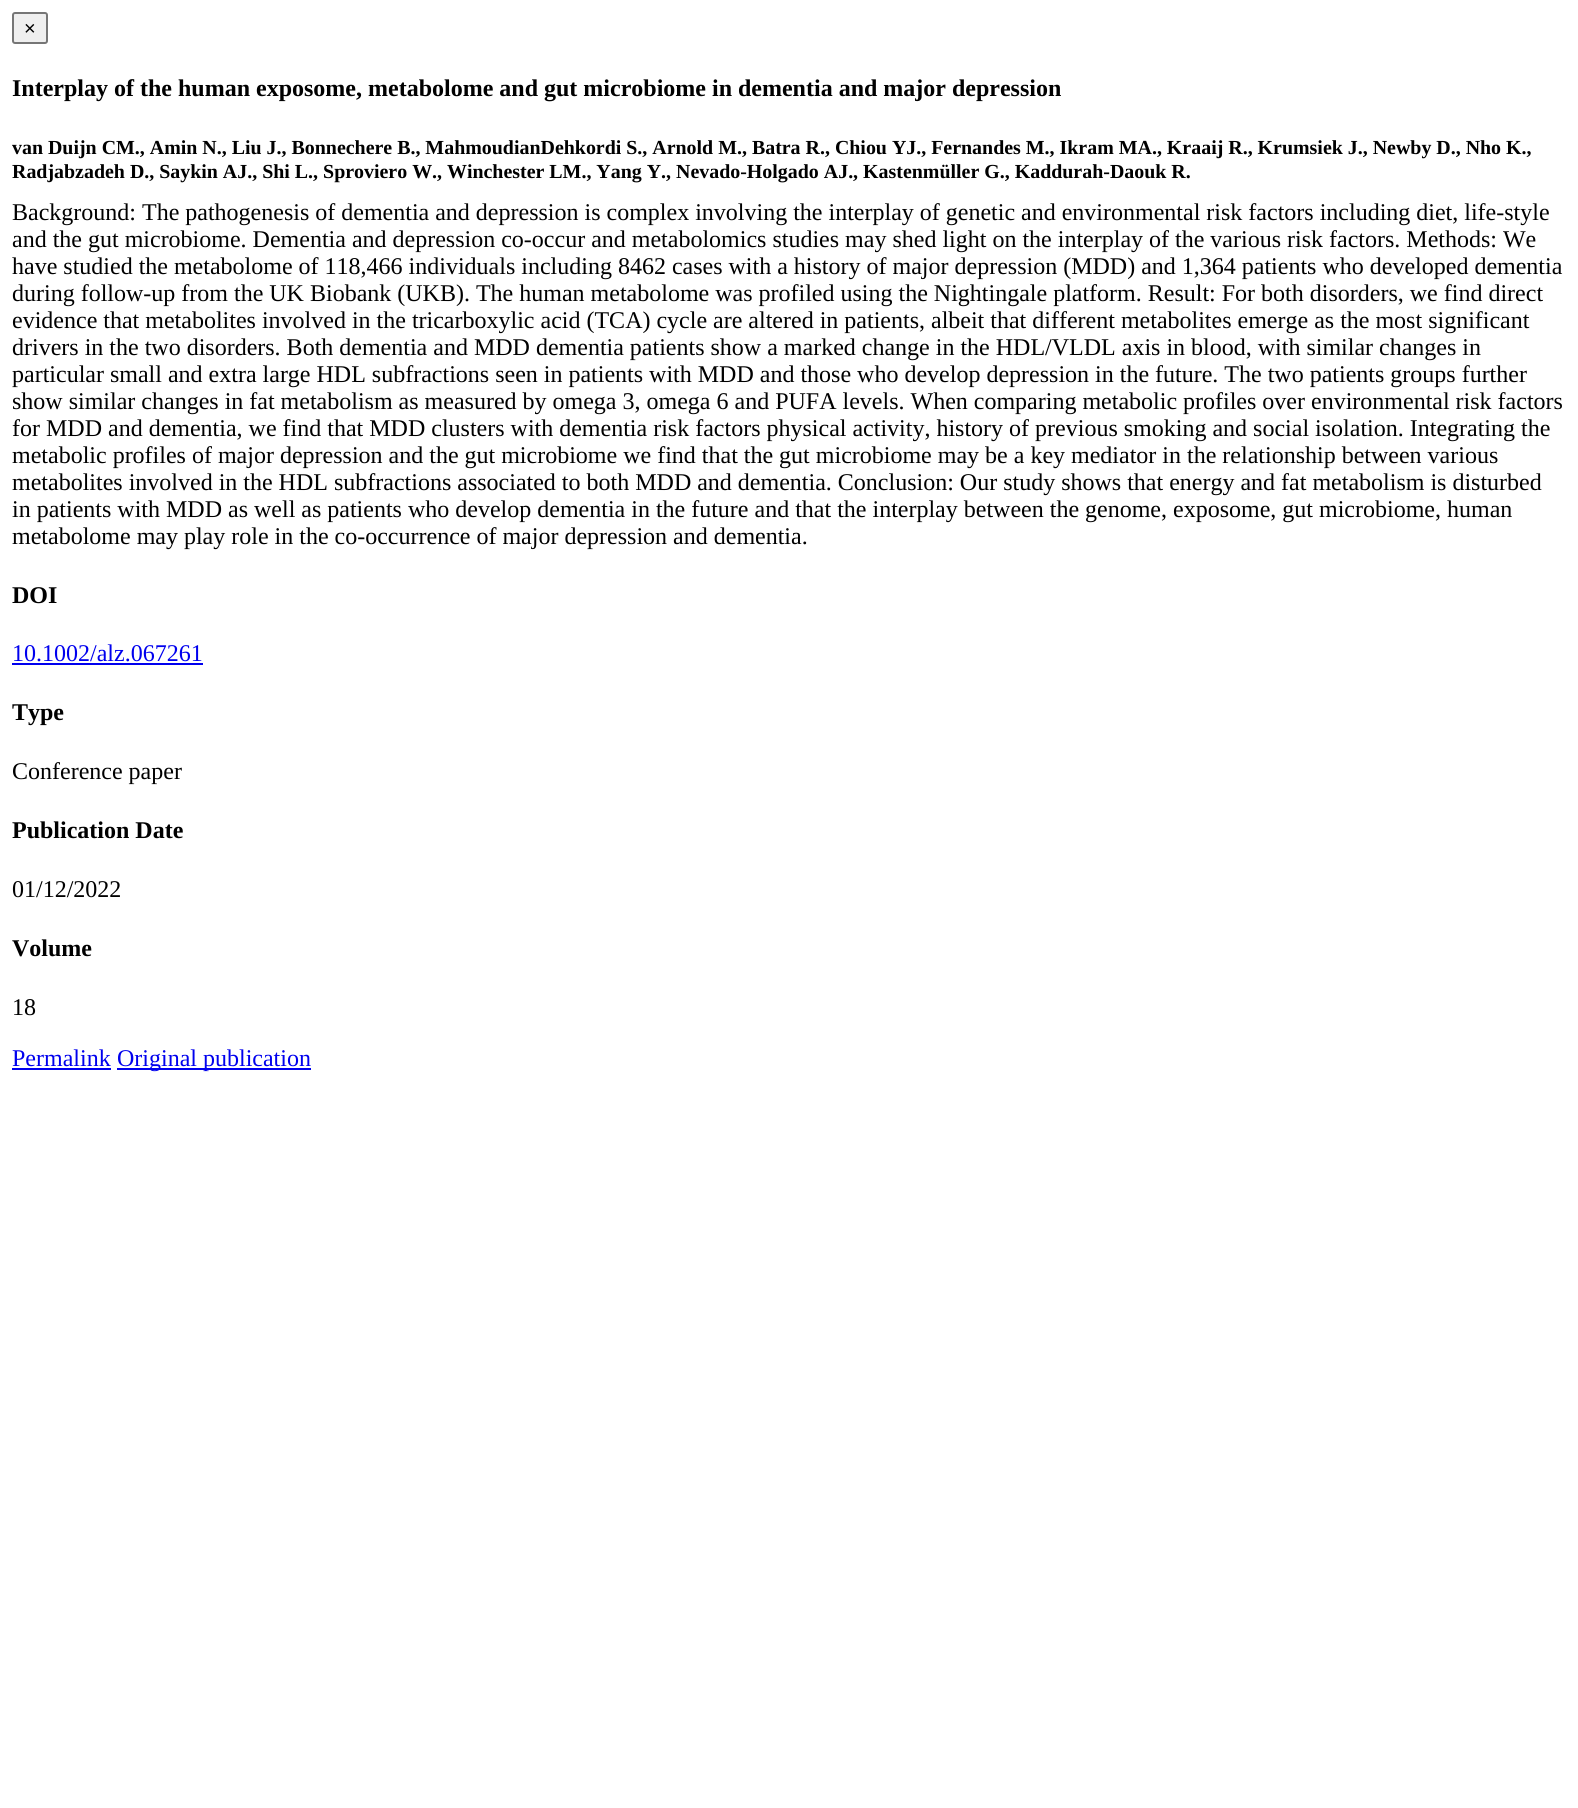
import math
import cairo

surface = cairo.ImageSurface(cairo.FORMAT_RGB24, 1578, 1808)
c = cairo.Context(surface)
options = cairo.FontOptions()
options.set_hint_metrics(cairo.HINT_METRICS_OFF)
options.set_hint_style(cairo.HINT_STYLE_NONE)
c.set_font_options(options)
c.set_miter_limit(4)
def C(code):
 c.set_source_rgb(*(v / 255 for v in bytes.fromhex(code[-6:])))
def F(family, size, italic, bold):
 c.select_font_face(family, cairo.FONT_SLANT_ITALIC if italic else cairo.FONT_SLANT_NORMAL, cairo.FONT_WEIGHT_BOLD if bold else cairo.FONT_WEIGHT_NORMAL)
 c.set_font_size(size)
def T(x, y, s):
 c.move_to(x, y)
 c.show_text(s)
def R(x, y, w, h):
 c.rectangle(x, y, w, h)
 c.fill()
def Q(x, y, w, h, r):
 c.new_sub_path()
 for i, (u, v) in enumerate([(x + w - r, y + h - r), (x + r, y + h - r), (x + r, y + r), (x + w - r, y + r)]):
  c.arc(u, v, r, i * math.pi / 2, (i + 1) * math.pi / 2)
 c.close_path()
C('ffffff')
c.paint()
C('efefef')
Q(13,13,34,30,2)
c.fill_preserve()
C('767676')
c.stroke()
F('Liberation Sans',20,0,0)
C('000000')
T(24,35,'×')
F('Liberation Serif',24,0,1)
T(12,96,'Interplay of the human exposome, metabolome and gut microbiome in dementia and major depression')
F('Liberation Serif',19.92,0,1)
T(12,154,'van Duijn CM., Amin N., Liu J., Bonnechere B., MahmoudianDehkordi S., Arnold M., Batra R., Chiou YJ., Fernandes M., Ikram MA., Kraaij R., Krumsiek J., Newby D., Nho K.,')
T(12,178,'Radjabzadeh D., Saykin AJ., Shi L., Sproviero W., Winchester LM., Yang Y., Nevado-Holgado AJ., Kastenmüller G., Kaddurah-Daouk R.')
F('Liberation Serif',24,0,0)
T(12,220,'Background: The pathogenesis of dementia and depression is complex involving the interplay of genetic and environmental risk factors including diet, life-style')
T(12,247,'and the gut microbiome. Dementia and depression co-occur and metabolomics studies may shed light on the interplay of the various risk factors. Methods: We')
T(12,274,'have studied the metabolome of 118,466 individuals including 8462 cases with a history of major depression (MDD) and 1,364 patients who developed dementia')
T(12,301,'during follow-up from the UK Biobank (UKB). The human metabolome was profiled using the Nightingale platform. Result: For both disorders, we find direct')
T(12,328,'evidence that metabolites involved in the tricarboxylic acid (TCA) cycle are altered in patients, albeit that different metabolites emerge as the most significant')
T(12,355,'drivers in the two disorders. Both dementia and MDD dementia patients show a marked change in the HDL/VLDL axis in blood, with similar changes in')
T(12,382,'particular small and extra large HDL subfractions seen in patients with MDD and those who develop depression in the future. The two patients groups further')
T(12,409,'show similar changes in fat metabolism as measured by omega 3, omega 6 and PUFA levels. When comparing metabolic profiles over environmental risk factors')
T(12,436,'for MDD and dementia, we find that MDD clusters with dementia risk factors physical activity, history of previous smoking and social isolation. Integrating the')
T(12,463,'metabolic profiles of major depression and the gut microbiome we find that the gut microbiome may be a key mediator in the relationship between various')
T(12,490,'metabolites involved in the HDL subfractions associated to both MDD and dementia. Conclusion: Our study shows that energy and fat metabolism is disturbed')
T(12,517,'in patients with MDD as well as patients who develop dementia in the future and that the interplay between the genome, exposome, gut microbiome, human')
T(12,544,'metabolome may play role in the co-occurrence of major depression and dementia.')
F('Liberation Serif',24,0,1)
T(12,603,'DOI')
F('Liberation Serif',24,0,0)
C('0000ee')
T(12,661,'10.1002/alz.067261')
R(12,663,191,2)
F('Liberation Serif',24,0,1)
C('000000')
T(12,720,'Type')
F('Liberation Serif',24,0,0)
T(12,779,'Conference paper')
F('Liberation Serif',24,0,1)
T(12,838,'Publication Date')
F('Liberation Serif',24,0,0)
T(12,897,'01/12/2022')
F('Liberation Serif',24,0,1)
T(12,956,'Volume')
F('Liberation Serif',24,0,0)
T(12,1015,'18')
C('0000ee')
T(12,1066,'Permalink')
R(12,1068,99,2)
R(117,1068,194,2)
T(117,1066,'Original publication')
surface.write_to_png('o.png')
